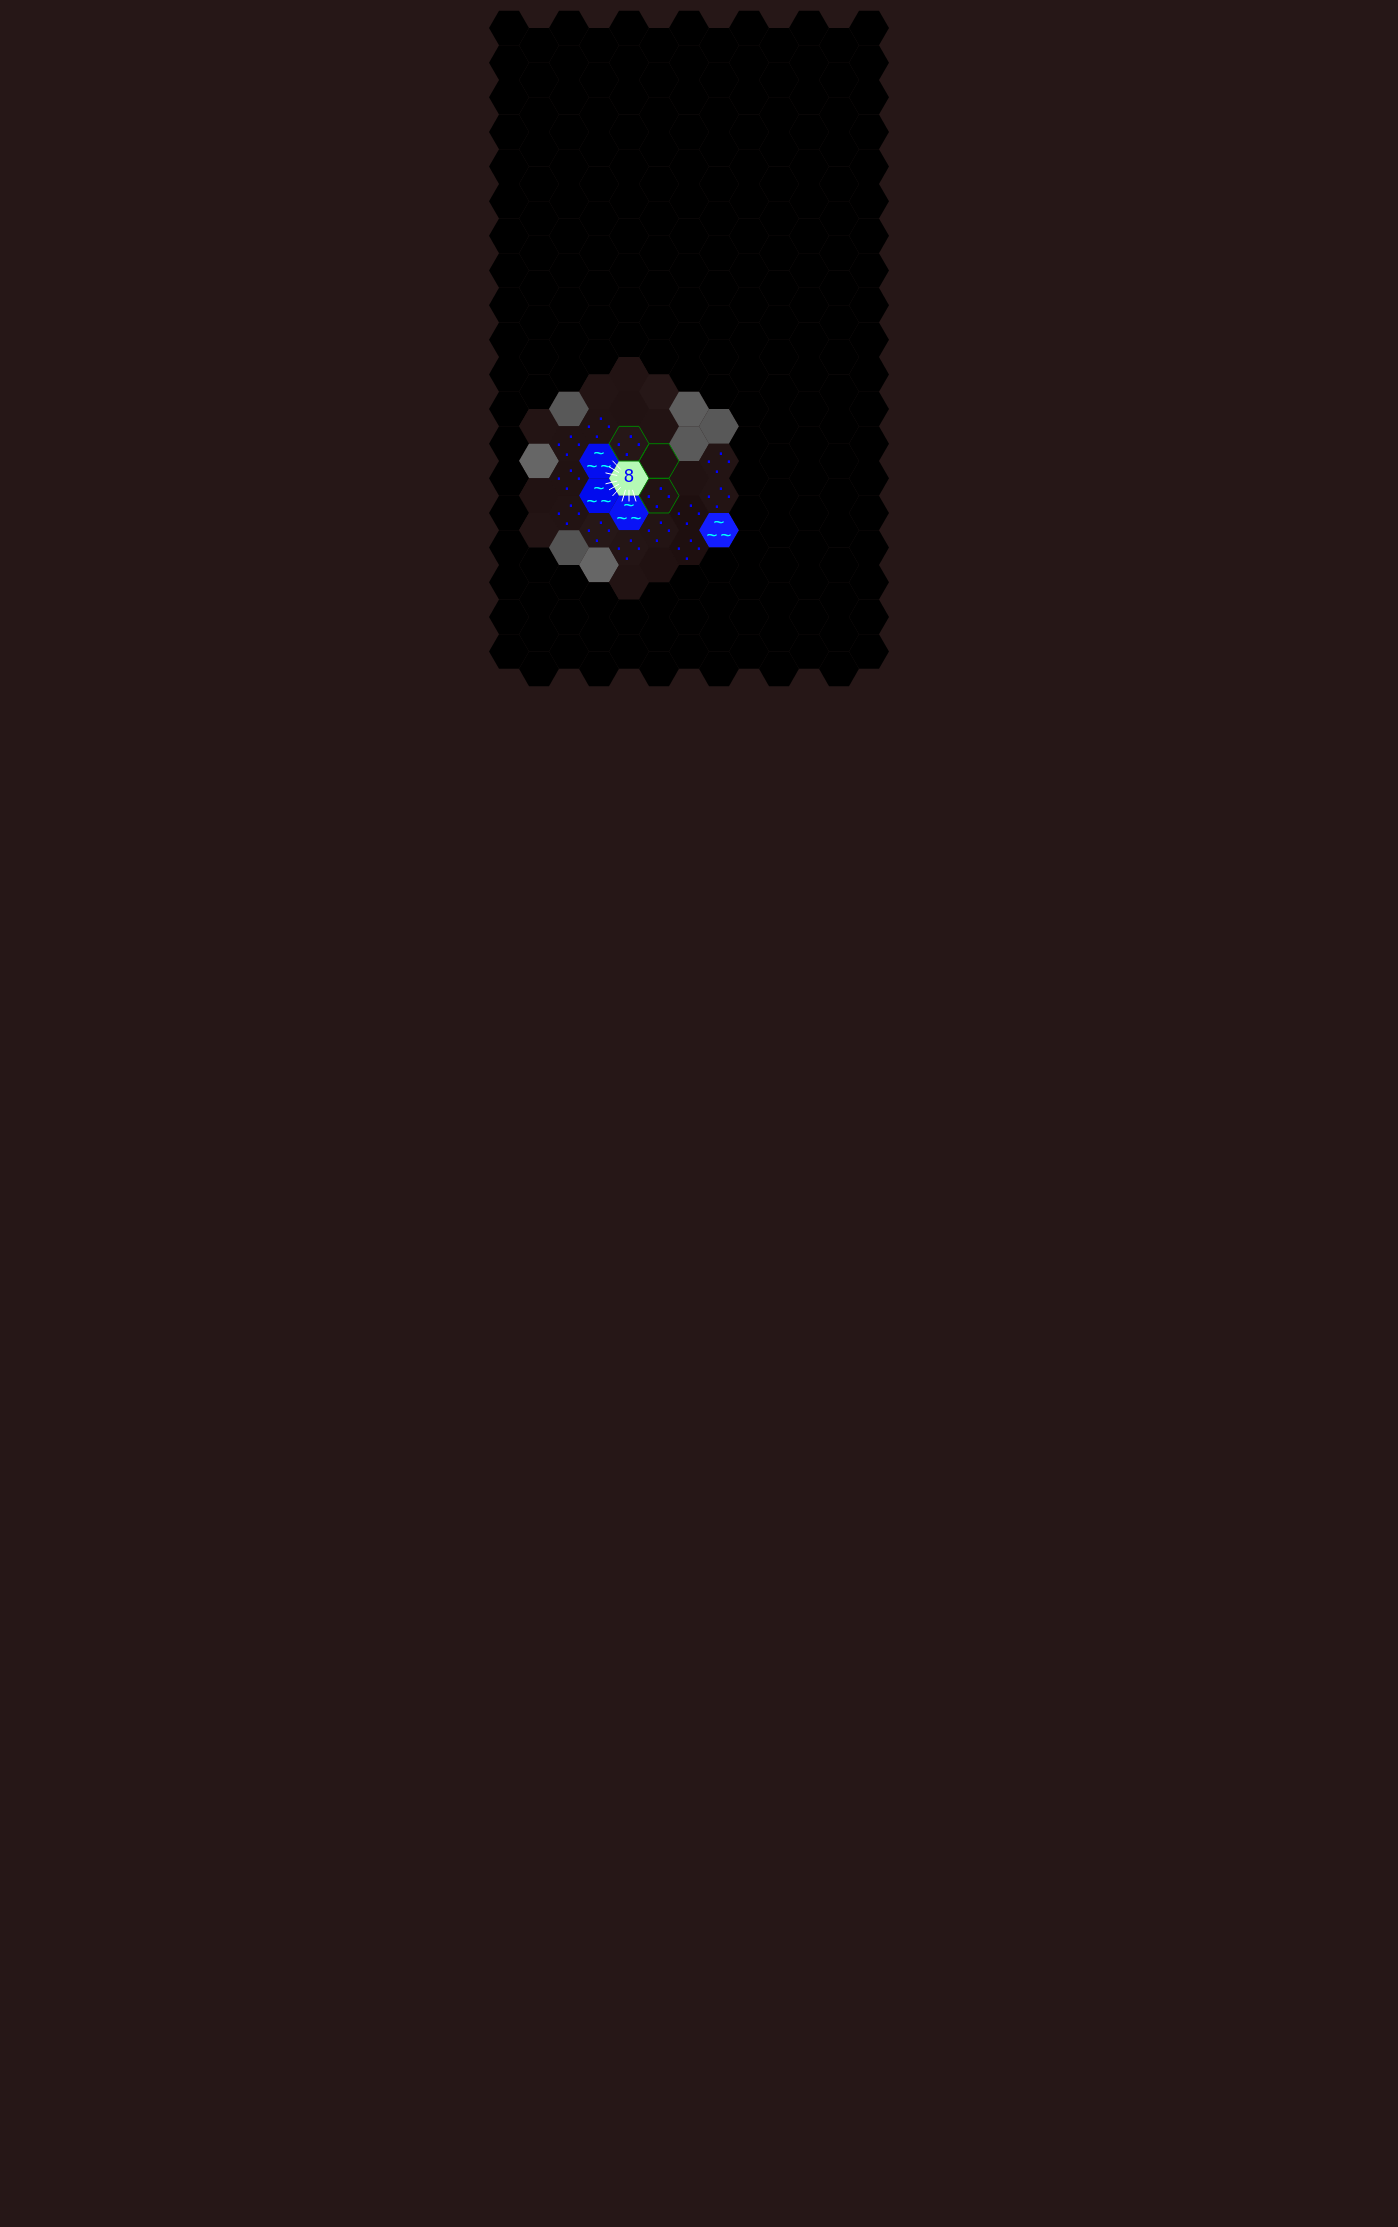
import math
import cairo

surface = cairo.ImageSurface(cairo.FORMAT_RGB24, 1398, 2227)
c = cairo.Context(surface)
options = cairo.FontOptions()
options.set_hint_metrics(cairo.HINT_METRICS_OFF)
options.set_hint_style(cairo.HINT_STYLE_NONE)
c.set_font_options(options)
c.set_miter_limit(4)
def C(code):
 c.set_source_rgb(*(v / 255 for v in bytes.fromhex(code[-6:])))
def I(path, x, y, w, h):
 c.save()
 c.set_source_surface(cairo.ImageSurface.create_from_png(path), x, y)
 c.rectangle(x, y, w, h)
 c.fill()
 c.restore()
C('261717')
c.paint()
I('1.png',489,10,400,677)
surface.write_to_png('o.png')
